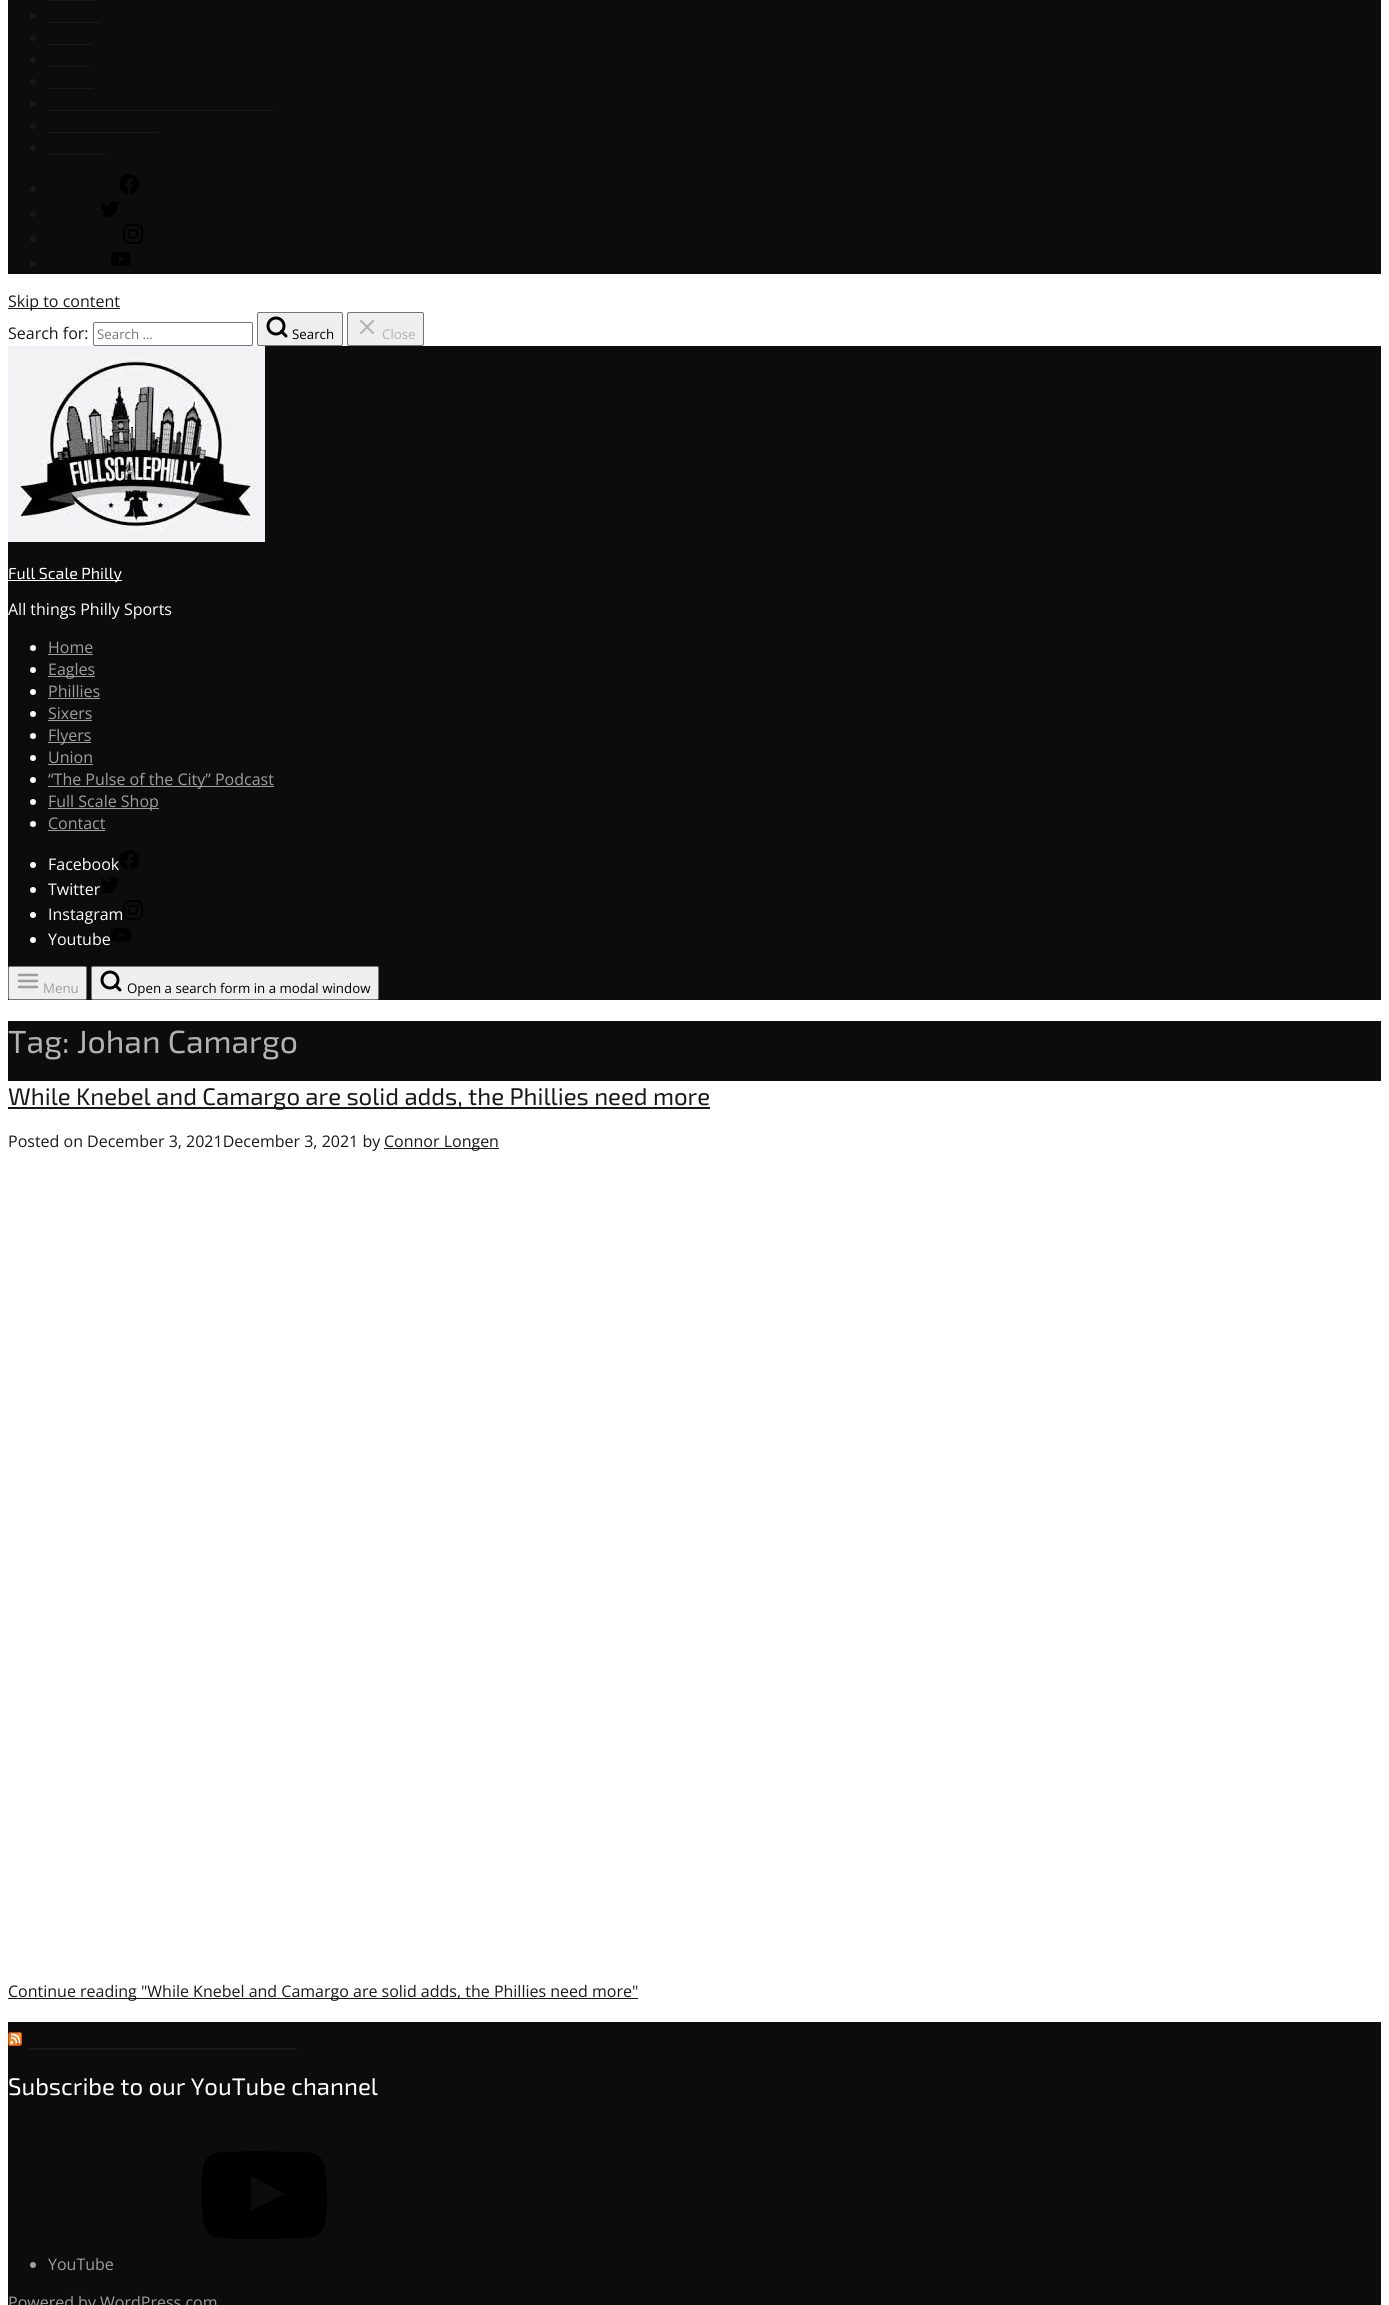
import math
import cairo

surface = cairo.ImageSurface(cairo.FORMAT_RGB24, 1389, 2305)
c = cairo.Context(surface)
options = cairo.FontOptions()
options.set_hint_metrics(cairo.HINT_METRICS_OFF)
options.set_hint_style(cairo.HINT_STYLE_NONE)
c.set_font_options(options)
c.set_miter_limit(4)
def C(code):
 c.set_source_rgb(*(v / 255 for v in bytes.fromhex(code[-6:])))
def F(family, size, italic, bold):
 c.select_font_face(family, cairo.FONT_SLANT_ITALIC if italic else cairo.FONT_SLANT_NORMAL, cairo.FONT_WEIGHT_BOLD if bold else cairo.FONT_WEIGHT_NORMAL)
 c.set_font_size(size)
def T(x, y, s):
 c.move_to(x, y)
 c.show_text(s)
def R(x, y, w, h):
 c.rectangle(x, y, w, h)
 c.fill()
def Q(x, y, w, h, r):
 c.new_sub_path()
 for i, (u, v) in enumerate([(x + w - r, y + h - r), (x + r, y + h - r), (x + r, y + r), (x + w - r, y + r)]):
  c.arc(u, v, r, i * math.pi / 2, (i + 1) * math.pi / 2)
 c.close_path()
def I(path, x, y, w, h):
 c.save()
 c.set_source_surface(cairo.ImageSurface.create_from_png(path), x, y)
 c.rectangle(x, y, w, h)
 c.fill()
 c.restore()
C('ffffff')
c.paint()
C('0c0c0c')
R(8,0,1373,274)
C('191919')
R(48,0,47,1)
c.arc(33,16,3,0,2 * math.pi)
c.fill()
R(48,22,52,1)
c.arc(33,38,3,0,2 * math.pi)
c.fill()
R(48,44,44,1)
c.arc(33,60,3,0,2 * math.pi)
c.fill()
R(48,66,43,1)
c.arc(33,82,3,0,2 * math.pi)
c.fill()
R(48,88,45,1)
c.arc(33,104,3,0,2 * math.pi)
c.fill()
R(48,110,226,1)
c.arc(33,126,3,0,2 * math.pi)
c.fill()
R(48,132,111,1)
c.arc(33,148,3,0,2 * math.pi)
c.fill()
R(48,154,57,1)
c.arc(33,189,3,0,2 * math.pi)
c.fill()
I('1.png',119,174,20,20)
c.arc(33,214,3,0,2 * math.pi)
c.fill()
I('2.png',101,201,19,16)
c.arc(33,239,3,0,2 * math.pi)
c.fill()
I('3.png',123,224,20,20)
c.arc(33,264,3,0,2 * math.pi)
c.fill()
I('4.png',111,252,20,14)
R(8,308,112,1)
F('Open Sans',16,0,0)
T(8,307,'Skip to content')
T(8,339,'Search for:')
Q(93.5,322.5,159,23,1.5)
C('767676')
c.set_line_width(1)
c.stroke()
F('Open Sans',13.3,0,0)
C('757575')
T(97,339,'Search …')
C('efefef')
Q(257.5,312.5,85,33,1.5)
c.fill_preserve()
C('767676')
c.stroke()
c.arc(276,326,8,0,2 * math.pi)
C('000000')
c.set_line_width(3)
c.stroke()
T(292,339,'Search')
c.new_path()
c.move_to(286,336)
c.line_to(281.5,331.5)
c.set_line_cap(cairo.LINE_CAP_ROUND)
c.set_line_join(cairo.LINE_JOIN_ROUND)
c.stroke()
C('efefef')
Q(347.5,312.5,76,33,1.5)
c.fill_preserve()
C('767676')
c.set_line_width(1)
c.set_line_cap(cairo.LINE_CAP_BUTT)
c.set_line_join(cairo.LINE_JOIN_MITER)
c.stroke()
c.new_path()
c.move_to(373,321)
c.line_to(361,333)
c.move_to(361,321)
c.line_to(373,333)
C('b2b2b2')
c.set_line_width(2)
c.set_line_cap(cairo.LINE_CAP_ROUND)
c.set_line_join(cairo.LINE_JOIN_ROUND)
c.stroke()
T(382,339,'Close')
C('0c0c0c')
R(8,346,1373,654)
I('5.png',8,346,257,196)
C('ffffff')
R(8,580,114,1)
F('Exo 2',16,0,0)
T(8,579,'Full Scale Philly')
F('Open Sans',16,0,0)
T(8,615,'All things Philly Sports')
c.new_path()
c.arc(33,648,3,0,2 * math.pi)
c.fill()
C('9c9fa0')
T(48,653,'Home')
R(48,654,45,1)
C('ffffff')
c.new_path()
c.arc(33,670,3,0,2 * math.pi)
c.fill()
C('9c9fa0')
R(48,676,47,1)
T(48,675,'Eagles')
C('ffffff')
c.new_path()
c.arc(33,692,3,0,2 * math.pi)
c.fill()
C('9c9fa0')
T(48,697,'Phillies')
R(48,698,52,1)
C('ffffff')
c.new_path()
c.arc(33,714,3,0,2 * math.pi)
c.fill()
C('9c9fa0')
T(48,719,'Sixers')
R(48,720,44,1)
C('ffffff')
c.new_path()
c.arc(33,736,3,0,2 * math.pi)
c.fill()
C('9c9fa0')
R(48,742,43,1)
T(48,741,'Flyers')
C('ffffff')
c.new_path()
c.arc(33,758,3,0,2 * math.pi)
c.fill()
C('9c9fa0')
T(48,763,'Union')
R(48,764,45,1)
C('ffffff')
c.new_path()
c.arc(33,780,3,0,2 * math.pi)
c.fill()
C('9c9fa0')
R(48,786,226,1)
T(48,785,'“The Pulse of the City” Podcast')
C('ffffff')
c.new_path()
c.arc(33,802,3,0,2 * math.pi)
c.fill()
C('9c9fa0')
R(48,808,111,1)
T(48,807,'Full Scale Shop')
C('ffffff')
c.new_path()
c.arc(33,824,3,0,2 * math.pi)
c.fill()
C('9c9fa0')
T(48,829,'Contact')
R(48,830,57,1)
C('ffffff')
c.new_path()
c.arc(33,865,3,0,2 * math.pi)
c.fill()
T(48,870,'Facebook')
I('6.png',119,850,20,20)
c.arc(33,890,3,0,2 * math.pi)
c.fill()
T(48,895,'Twitter')
I('2.png',101,877,19,16)
c.arc(33,915,3,0,2 * math.pi)
c.fill()
T(48,920,'Instagram')
I('3.png',123,900,20,20)
c.arc(33,940,3,0,2 * math.pi)
c.fill()
T(48,945,'Youtube')
I('4.png',111,928,20,14)
C('efefef')
Q(8.5,966.5,78,33,1.5)
c.fill_preserve()
C('767676')
c.set_line_width(1)
c.set_line_cap(cairo.LINE_CAP_BUTT)
c.set_line_join(cairo.LINE_JOIN_MITER)
c.stroke()
c.new_path()
c.move_to(19,981)
c.line_to(37,981)
c.move_to(19,975)
c.line_to(37,975)
c.move_to(19,987)
c.line_to(37,987)
C('9c9fa0')
c.set_line_width(2.5)
c.set_line_cap(cairo.LINE_CAP_ROUND)
c.set_line_join(cairo.LINE_JOIN_ROUND)
c.stroke()
F('Open Sans',13.3,0,0)
T(43,993,'Menu')
C('efefef')
Q(91.5,966.5,287,33,1.5)
c.fill_preserve()
C('767676')
c.set_line_width(1)
c.set_line_cap(cairo.LINE_CAP_BUTT)
c.set_line_join(cairo.LINE_JOIN_MITER)
c.stroke()
c.arc(110,980,8,0,2 * math.pi)
C('000000')
c.set_line_width(3)
c.stroke()
T(127,993,'Open a search form in a modal window')
c.new_path()
c.move_to(120,990)
c.line_to(115.5,985.5)
c.set_line_cap(cairo.LINE_CAP_ROUND)
c.set_line_join(cairo.LINE_JOIN_ROUND)
c.stroke()
C('0c0c0c')
R(8,1021,1373,60)
F('Exo 2',32,0,0)
C('b2b2b2')
T(8,1053,'Tag: Johan Camargo')
C('191919')
R(8,1107,702,2)
F('Exo 2',24,0,0)
T(8,1105,'While Knebel and Camargo are solid adds, the Phillies need more')
F('Open Sans',16,0,0)
T(8,1147,'Posted on December 3, 2021December 3, 2021 by')
R(384,1148,115,1)
T(384,1147,'Connor Longen')
R(8,1998,630,1)
T(8,1997,'Continue reading "While Knebel and Camargo are solid adds, the Phillies need more"')
C('0c0c0c')
R(8,2022,1373,283)
I('7.png',8,2032,14,14)
C('191919')
R(27,2048,270,2)
F('Exo 2',24,0,0)
C('ffffff')
T(8,2095,'Subscribe to our YouTube channel')
C('000000')
c.new_path()
c.move_to(325,2170)
c.curve_to(323,2151,309,2152,294,2152)
c.line_to(255,2151)
c.line_to(227,2152)
c.curve_to(223,2152,217,2152,213,2154)
c.curve_to(210,2155,207,2158,205,2161)
c.curve_to(200,2173,201,2207,203,2220)
c.curve_to(206,2241,223,2238,239,2239)
c.line_to(273,2239)
c.line_to(301,2238)
c.curve_to(305,2238,311,2238,315,2236)
c.curve_to(318,2235,321,2232,323,2229)
c.curve_to(329,2217,327,2183,325,2170)
c.close_path()
c.move_to(251,2211)
c.line_to(251,2176)
c.line_to(285,2194)
c.close_path()
c.fill()
C('9c9fa0')
c.arc(33,2265,3,0,2 * math.pi)
c.fill()
F('Open Sans',16,0,0)
T(48,2270,'YouTube')
T(8,2308,'Powered by WordPress.com')
surface.write_to_png('o.png')
